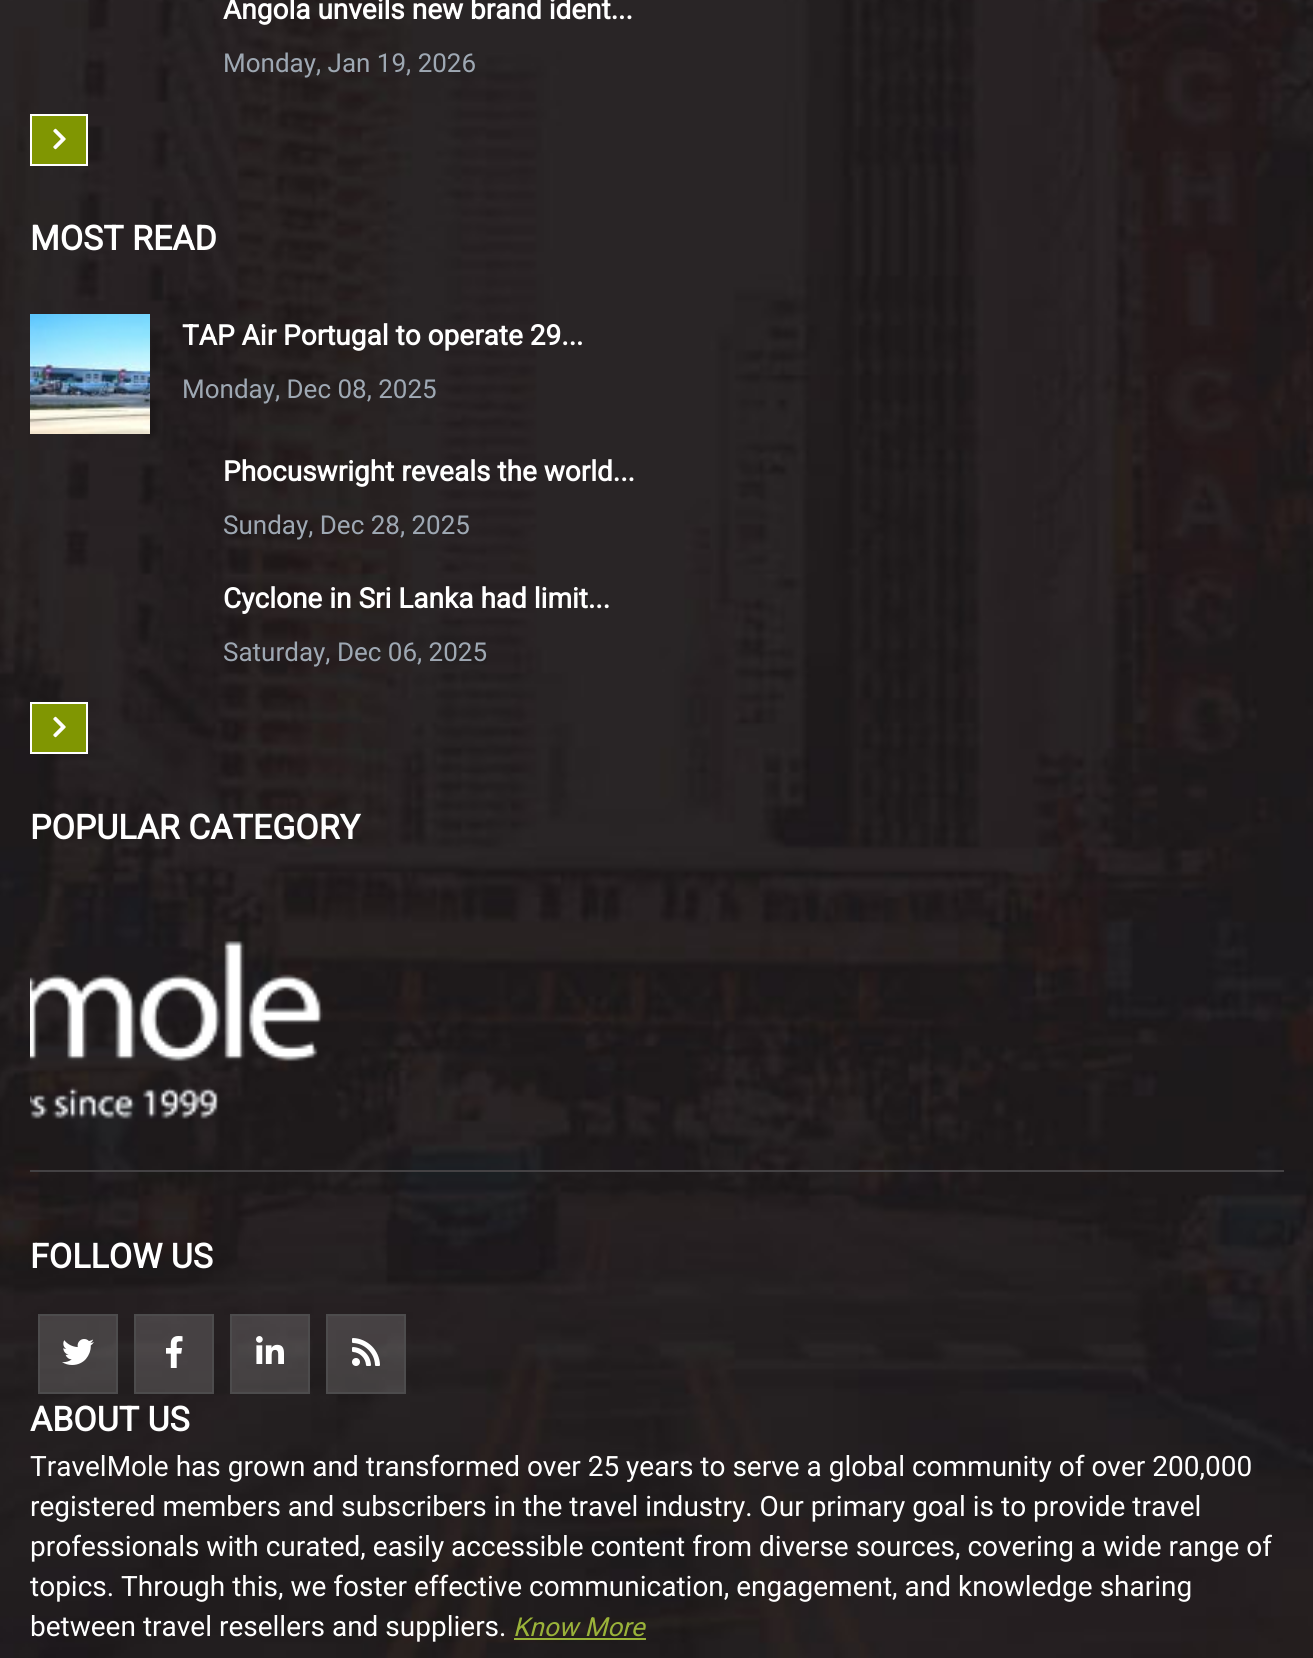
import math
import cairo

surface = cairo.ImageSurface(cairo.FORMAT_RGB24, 1313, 1658)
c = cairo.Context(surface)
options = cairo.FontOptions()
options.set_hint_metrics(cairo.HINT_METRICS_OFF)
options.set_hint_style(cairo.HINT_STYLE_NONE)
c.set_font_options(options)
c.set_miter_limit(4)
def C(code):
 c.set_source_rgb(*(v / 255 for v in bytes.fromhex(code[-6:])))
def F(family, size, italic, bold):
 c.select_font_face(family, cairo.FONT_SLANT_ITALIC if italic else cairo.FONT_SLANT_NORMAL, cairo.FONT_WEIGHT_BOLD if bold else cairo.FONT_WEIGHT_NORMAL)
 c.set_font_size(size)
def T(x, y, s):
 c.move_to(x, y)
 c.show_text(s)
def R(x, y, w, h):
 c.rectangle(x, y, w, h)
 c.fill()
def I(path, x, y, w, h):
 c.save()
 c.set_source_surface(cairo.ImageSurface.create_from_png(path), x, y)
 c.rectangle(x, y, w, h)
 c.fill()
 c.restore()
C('ffffff')
c.paint()
I('1.png',0,0,1313,1658)
F('Roboto',28,0,1)
C('ffffff')
T(223,19,'Angola unveils new brand ident...')
F('Roboto',26,0,0)
C('9ea8b3')
T(223,72,'Monday, Jan 19, 2026')
C('809602')
c.rectangle(31,115,56,50)
c.fill_preserve()
C('ffffff')
c.stroke()
I('2.png',53,128,13,22)
F('Roboto',34,0,1)
T(30,250,'MOST READ')
I('3.png',30,314,120,120)
F('Roboto',28,0,1)
T(182,345,'TAP Air Portugal to operate 29...')
F('Roboto',26,0,0)
C('9ea8b3')
T(182,398,'Monday, Dec 08, 2025')
F('Roboto',28,0,1)
C('ffffff')
T(223,481,'Phocuswright reveals the world...')
F('Roboto',26,0,0)
C('9ea8b3')
T(223,534,'Sunday, Dec 28, 2025')
F('Roboto',28,0,1)
C('ffffff')
T(223,608,'Cyclone in Sri Lanka had limit...')
F('Roboto',26,0,0)
C('9ea8b3')
T(223,661,'Saturday, Dec 06, 2025')
C('809602')
c.rectangle(31,703,56,50)
c.fill_preserve()
C('ffffff')
c.stroke()
I('2.png',53,716,13,22)
F('Roboto',34,0,1)
T(30,839,'POPULAR CATEGORY')
I('4.png',30,941,293,178)
C('444244')
R(30,1170,1254,2)
C('ffffff')
T(30,1268,'FOLLOW US')
c.set_source_rgba(1,1,1,0.16)
c.rectangle(39,1315,78,78)
c.fill_preserve()
C('4d4c4d')
c.stroke()
I('5.png',62,1339,32,26)
c.set_source_rgba(1,1,1,0.16)
c.rectangle(135,1315,78,78)
c.fill_preserve()
C('4d4c4d')
c.stroke()
I('6.png',166,1336,17,32)
c.set_source_rgba(1,1,1,0.16)
c.rectangle(231,1315,78,78)
c.fill_preserve()
C('4d4c4d')
c.stroke()
I('7.png',256,1336,28,28)
c.set_source_rgba(1,1,1,0.16)
c.rectangle(327,1315,78,78)
c.fill_preserve()
C('4d4c4d')
c.stroke()
I('8.png',352,1338,28,28)
C('ffffff')
T(30,1431,'ABOUT US')
F('Roboto',28,0,0)
T(30,1476,'TravelMole has grown and transformed over 25 years to serve a global community of over 200,000')
T(30,1516,'registered members and subscribers in the travel industry. Our primary goal is to provide travel')
T(30,1556,'professionals with curated, easily accessible content from diverse sources, covering a wide range of')
T(30,1596,'topics. Through this, we foster effective communication, engagement, and knowledge sharing')
T(30,1636,'between travel resellers and suppliers.')
F('Roboto',26,1,0)
C('9ab339')
T(513,1636,'Know More')
R(514,1638,132,2)
surface.write_to_png('o.png')
